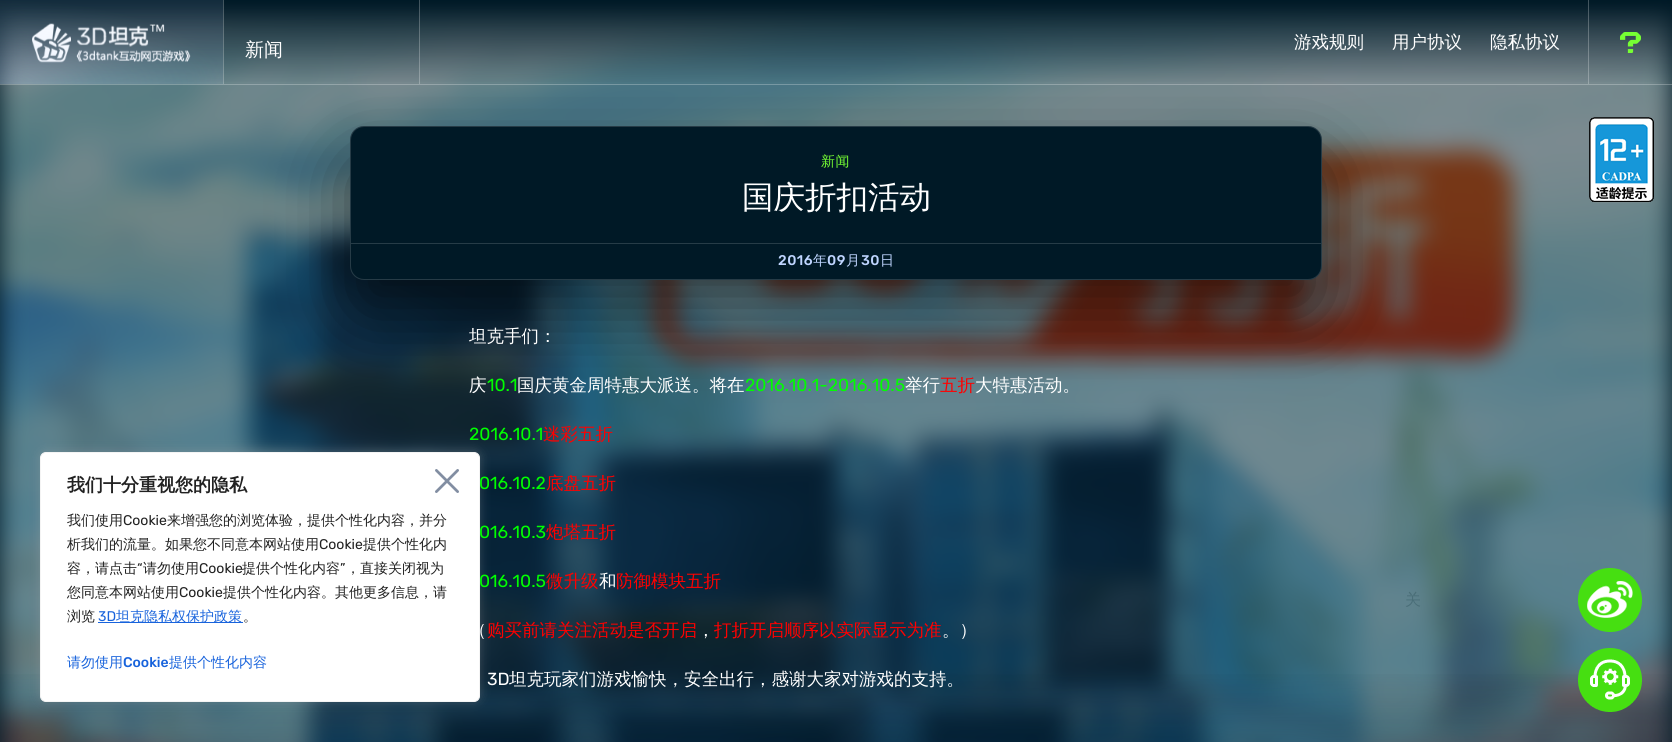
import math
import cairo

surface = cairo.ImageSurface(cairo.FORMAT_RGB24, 1672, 742)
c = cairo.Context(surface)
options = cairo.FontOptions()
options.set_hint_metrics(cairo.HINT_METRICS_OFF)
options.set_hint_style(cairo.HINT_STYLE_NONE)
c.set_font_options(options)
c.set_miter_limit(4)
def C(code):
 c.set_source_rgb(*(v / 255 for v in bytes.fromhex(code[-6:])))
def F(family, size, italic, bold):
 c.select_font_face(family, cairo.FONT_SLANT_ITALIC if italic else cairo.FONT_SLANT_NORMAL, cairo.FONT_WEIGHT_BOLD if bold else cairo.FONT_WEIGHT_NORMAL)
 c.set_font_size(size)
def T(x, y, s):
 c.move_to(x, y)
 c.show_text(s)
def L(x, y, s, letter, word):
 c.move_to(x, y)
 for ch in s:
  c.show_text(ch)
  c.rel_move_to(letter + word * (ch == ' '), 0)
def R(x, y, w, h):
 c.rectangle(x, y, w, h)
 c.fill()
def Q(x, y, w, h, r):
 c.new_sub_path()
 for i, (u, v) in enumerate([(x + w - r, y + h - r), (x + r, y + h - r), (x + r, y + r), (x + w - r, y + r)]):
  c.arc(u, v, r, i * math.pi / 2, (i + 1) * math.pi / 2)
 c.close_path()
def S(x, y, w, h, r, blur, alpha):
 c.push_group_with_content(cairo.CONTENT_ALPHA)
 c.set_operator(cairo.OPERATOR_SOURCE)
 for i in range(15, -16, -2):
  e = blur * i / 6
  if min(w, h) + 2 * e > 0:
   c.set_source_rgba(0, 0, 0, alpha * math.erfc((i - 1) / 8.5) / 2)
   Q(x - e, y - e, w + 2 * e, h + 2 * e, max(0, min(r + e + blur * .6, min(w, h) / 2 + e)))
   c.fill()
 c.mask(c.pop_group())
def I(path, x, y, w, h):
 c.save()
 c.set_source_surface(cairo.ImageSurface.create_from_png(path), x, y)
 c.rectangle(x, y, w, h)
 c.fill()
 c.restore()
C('001926')
c.paint()
I('4.png',0,0,1672,742)
C('000000')
S(350,161,972,154,14,35,.5)
c.set_source_rgba(1,1,1,0.25)
R(0,84,1672,1)
gradient = cairo.LinearGradient(836,0,836,84)
gradient.add_color_stop_rgba(0,0,0.098,0.149,1)
gradient.add_color_stop_rgba(1,0,0.098,0.149,0)
c.set_source(gradient)
R(0,0,1672,82)
c.set_source_rgba(1,1,1,0.25)
R(223,0,1,84)
I('1.png',32,23,159,40)
gradient = cairo.RadialGradient(0,0,0,0,0,1)
gradient.set_matrix(cairo.Matrix(1 / 223, 0, 0, 1 / 84, -1 * 0 / 223, -1 * 84 / 84))
gradient.add_color_stop_rgba(0,0.749,0.835,1,.25)
gradient.add_color_stop_rgba(1,0.749,0.835,1,.1)
c.set_source(gradient)
R(0,0,223,84)
c.set_source_rgba(1,1,1,0.25)
R(419,0,1,84)
F('WenQuanYi Zen Hei Medium',19,0,0)
C('ffffff')
T(245,56,'新闻')
F('WenQuanYi Zen Hei Medium',17.5,0,0)
T(1294,48,'游戏规则')
T(1392,48,'用户协议')
T(1490,48,'隐私协议')
c.set_source_rgba(1,1,1,0.25)
R(1588,0,1,84)
I('2.png',1620,32,21,21)
gradient = cairo.LinearGradient(836,0,836,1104)
gradient.add_color_stop_rgba(0,0,0,0,0)
gradient.add_color_stop_rgba(.6,0,0.098,0.149,0)
gradient.add_color_stop_rgba(1,0,0.098,0.149,1)
c.set_source(gradient)
R(0,674,1672,68)
C('acabab')
S(40,451,440,250,6,5,.3)
C('ffffff')
Q(40.5,452.5,439,249,5.5)
c.fill_preserve()
C('f4f4f4')
c.set_line_width(1)
c.stroke()
I('3.png',435,469,24,24)
F('WenQuanYi Zen Hei',18,0,1)
C('212121')
T(67,491,'我们十分重视您的隐私')
F('WenQuanYi Zen Hei Medium',14,0,0)
T(67,525,'我们使用')
F('Rubik',14,0,0)
T(123,525,'Cookie')
F('WenQuanYi Zen Hei Medium',14,0,0)
T(167,525,'来增强您的浏览体验，提供个性化内容，并分')
T(67,549,'析我们的流量。如果您不同意本网站使用')
F('Rubik',14,0,0)
T(319,549,'Cookie')
F('WenQuanYi Zen Hei Medium',14,0,0)
T(363,549,'提供个性化内')
T(67,573,'容，请点击')
F('Rubik',14,0,0)
T(137,573,'“')
F('WenQuanYi Zen Hei Medium',14,0,0)
T(143,573,'请勿使用')
F('Rubik',14,0,0)
T(199,573,'Cookie')
F('WenQuanYi Zen Hei Medium',14,0,0)
T(242,573,'提供个性化内容')
F('Rubik',14,0,0)
T(340,573,'”')
F('WenQuanYi Zen Hei Medium',14,0,0)
T(346,573,'，直接关闭视为')
T(67,597,'您同意本网站使用')
F('Rubik',14,0,0)
T(179,597,'Cookie')
F('WenQuanYi Zen Hei Medium',14,0,0)
T(223,597,'提供个性化内容。其他更多信息，请')
T(67,621,'浏览')
F('Rubik',14,0,0)
C('1863dc')
T(98,621,'3D')
R(98,622,145,1)
F('WenQuanYi Zen Hei Medium',14,0,0)
T(116,621,'坦克隐私权保护政策')
C('212121')
T(243,621,'。')
C('1863dc')
T(67,667,'请勿使用')
F('Rubik Medium',14,0,0)
T(123,667,'Cookie')
F('WenQuanYi Zen Hei Medium',14,0,0)
T(169,667,'提供个性化内容')
C('001926')
Q(350,126,972,154,14)
c.fill()
Q(350.5,126.5,971,153,13.5)
c.set_source_rgba(1,1,1,0.15)
c.stroke()
C('76ff33')
L(821,166,'新闻',.5,0)
F('WenQuanYi Zen Hei Medium',31.5,0,0)
C('ffffff')
T(742,208,'国庆折扣活动')
C('263c47')
R(351,243,970,1)
F('Rubik Medium',14,0,0)
C('bfd5ff')
L(778,265,'2016',.5,0)
F('WenQuanYi Zen Hei Medium',14,0,0)
L(813,265,'年',.5,0)
F('Rubik Medium',14,0,0)
L(827,265,'09',.5,0)
F('WenQuanYi Zen Hei Medium',14,0,0)
L(846,265,'月',.5,0)
F('Rubik Medium',14,0,0)
L(861,265,'30',.5,0)
F('WenQuanYi Zen Hei Medium',14,0,0)
L(880,265,'日',.5,0)
F('WenQuanYi Zen Hei Medium',17.5,0,0)
C('ffffff')
T(469,342,'坦克手们：')
T(469,391,'庆')
F('Rubik',17.5,0,0)
C('00ff00')
T(487,391,'10.1')
F('WenQuanYi Zen Hei Medium',17.5,0,0)
C('ffffff')
T(517,391,'国庆黄金周特惠大派送。将在')
F('Rubik',17.5,0,0)
C('00ff00')
T(745,391,'2016.10.1-2016.10.5')
F('WenQuanYi Zen Hei Medium',17.5,0,0)
C('ffffff')
T(905,391,'举行')
C('ff0000')
T(940,391,'五折')
C('ffffff')
T(975,391,'大特惠活动。')
F('Rubik',17.5,0,0)
C('00ff00')
T(469,440,'2016.10.1')
F('WenQuanYi Zen Hei Medium',17.5,0,0)
C('ff0000')
T(543,440,'迷彩五折')
F('Rubik',17.5,0,0)
C('00ff00')
T(479,489,'016.10.2')
F('WenQuanYi Zen Hei Medium',17.5,0,0)
C('ff0000')
T(546,489,'底盘五折')
F('Rubik',17.5,0,0)
C('00ff00')
T(479,538,'016.10.3')
F('WenQuanYi Zen Hei Medium',17.5,0,0)
C('ff0000')
T(546,538,'炮塔五折')
F('Rubik',17.5,0,0)
C('00ff00')
T(479,587,'016.10.5')
F('WenQuanYi Zen Hei Medium',17.5,0,0)
C('ff0000')
T(546,587,'微升级')
C('ffffff')
T(599,587,'和')
C('ff0000')
T(616,587,'防御模块五折')
C('ffffff')
T(469,636,'（')
C('ff0000')
T(487,636,'购买前请关注活动是否开启')
C('ffffff')
T(697,636,'，')
C('ff0000')
T(714,636,'打折开启顺序以实际显示为准')
C('ffffff')
T(942,636,'。）')
F('Rubik',17.5,0,0)
T(487,685,'3D')
F('WenQuanYi Zen Hei Medium',17.5,0,0)
T(509,685,'坦克玩家们游戏愉快，安全出行，感谢大家对游戏的支持。')
I('5.png',1589,117,65,86)
I('6.png',1578,568,64,64)
F('WenQuanYi Zen Hei Medium',16,0,0)
C('4a6e78')
T(1405,605,'关')
I('7.png',1578,648,64,64)
surface.write_to_png('o.png')
